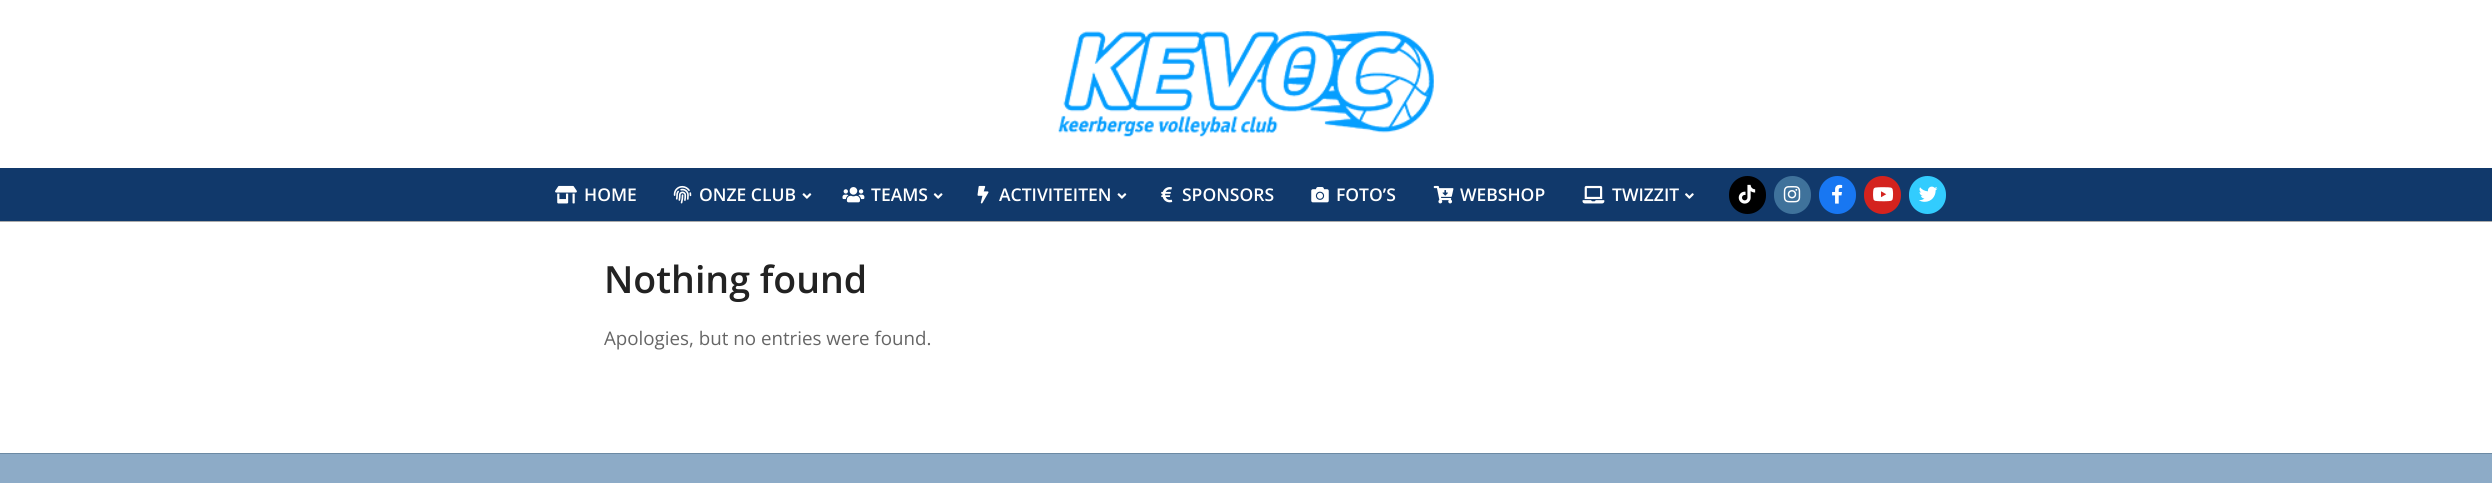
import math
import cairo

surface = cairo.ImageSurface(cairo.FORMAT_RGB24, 2492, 483)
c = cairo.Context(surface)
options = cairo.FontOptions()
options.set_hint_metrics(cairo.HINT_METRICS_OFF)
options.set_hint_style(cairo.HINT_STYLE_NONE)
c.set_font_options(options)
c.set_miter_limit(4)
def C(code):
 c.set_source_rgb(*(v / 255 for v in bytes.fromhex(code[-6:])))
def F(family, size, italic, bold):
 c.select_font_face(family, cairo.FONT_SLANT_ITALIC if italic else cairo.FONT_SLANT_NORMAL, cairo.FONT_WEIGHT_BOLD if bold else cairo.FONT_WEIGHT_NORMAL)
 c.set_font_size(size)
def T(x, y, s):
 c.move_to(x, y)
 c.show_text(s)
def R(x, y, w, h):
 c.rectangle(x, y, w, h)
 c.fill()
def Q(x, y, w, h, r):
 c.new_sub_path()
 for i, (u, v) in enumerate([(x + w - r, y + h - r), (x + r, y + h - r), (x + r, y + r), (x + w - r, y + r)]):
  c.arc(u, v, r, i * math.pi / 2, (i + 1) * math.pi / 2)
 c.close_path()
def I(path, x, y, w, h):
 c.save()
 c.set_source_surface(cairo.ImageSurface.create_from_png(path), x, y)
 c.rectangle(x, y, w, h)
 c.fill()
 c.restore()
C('ffffff')
c.paint()
C('ababab')
R(0,221,2492,1)
I('1.png',1058,31,376,106)
C('11396b')
R(0,168,2492,53)
I('2.png',555,185,22,19)
F('Open Sans SemiBold',17.5,0,0)
C('ffffff')
T(584,201,'HOME')
I('3.png',673,185,19,19)
T(699,201,'ONZE CLUB')
I('4.png',802,193,10,6)
I('5.png',842,187,23,16)
T(871,201,'TEAMS')
I('6.png',933,193,10,6)
I('7.png',977,185,12,19)
T(999,201,'ACTIVITEITEN')
I('4.png',1117,193,10,6)
I('8.png',1161,187,12,16)
T(1182,201,'SPONSORS')
I('9.png',1311,187,18,16)
T(1336,201,'FOTO’S')
I('10.png',1433,185,21,19)
T(1460,201,'WEBSHOP')
I('11.png',1582,185,23,19)
T(1612,201,'TWIZZIT')
I('12.png',1685,193,9,6)
C('000000')
Q(1729,176,37,38,18.5)
c.fill()
I('13.png',1738,184,18,20)
C('3f729b')
Q(1774,176,37,38,18.5)
c.fill()
I('14.png',1783,186,18,17)
C('1877f2')
Q(1819,176,37,38,18.5)
c.fill()
I('15.png',1832,184,11,20)
C('d4231e')
Q(1864,176,37,38,18.5)
c.fill()
I('16.png',1873,187,21,15)
C('32ccfe')
Q(1909,176,37,38,18.5)
c.fill()
I('17.png',1919,186,19,16)
F('Open Sans SemiBold',37.5,0,0)
C('222222')
T(604,293,'Nothing found')
F('Open Sans',18.75,0,0)
C('666666')
T(604,345,'Apologies, but no entries were found.')
C('6c8aa4')
R(0,453,2492,1)
C('8dabc7')
R(0,454,2492,29)
surface.write_to_png('o.png')
